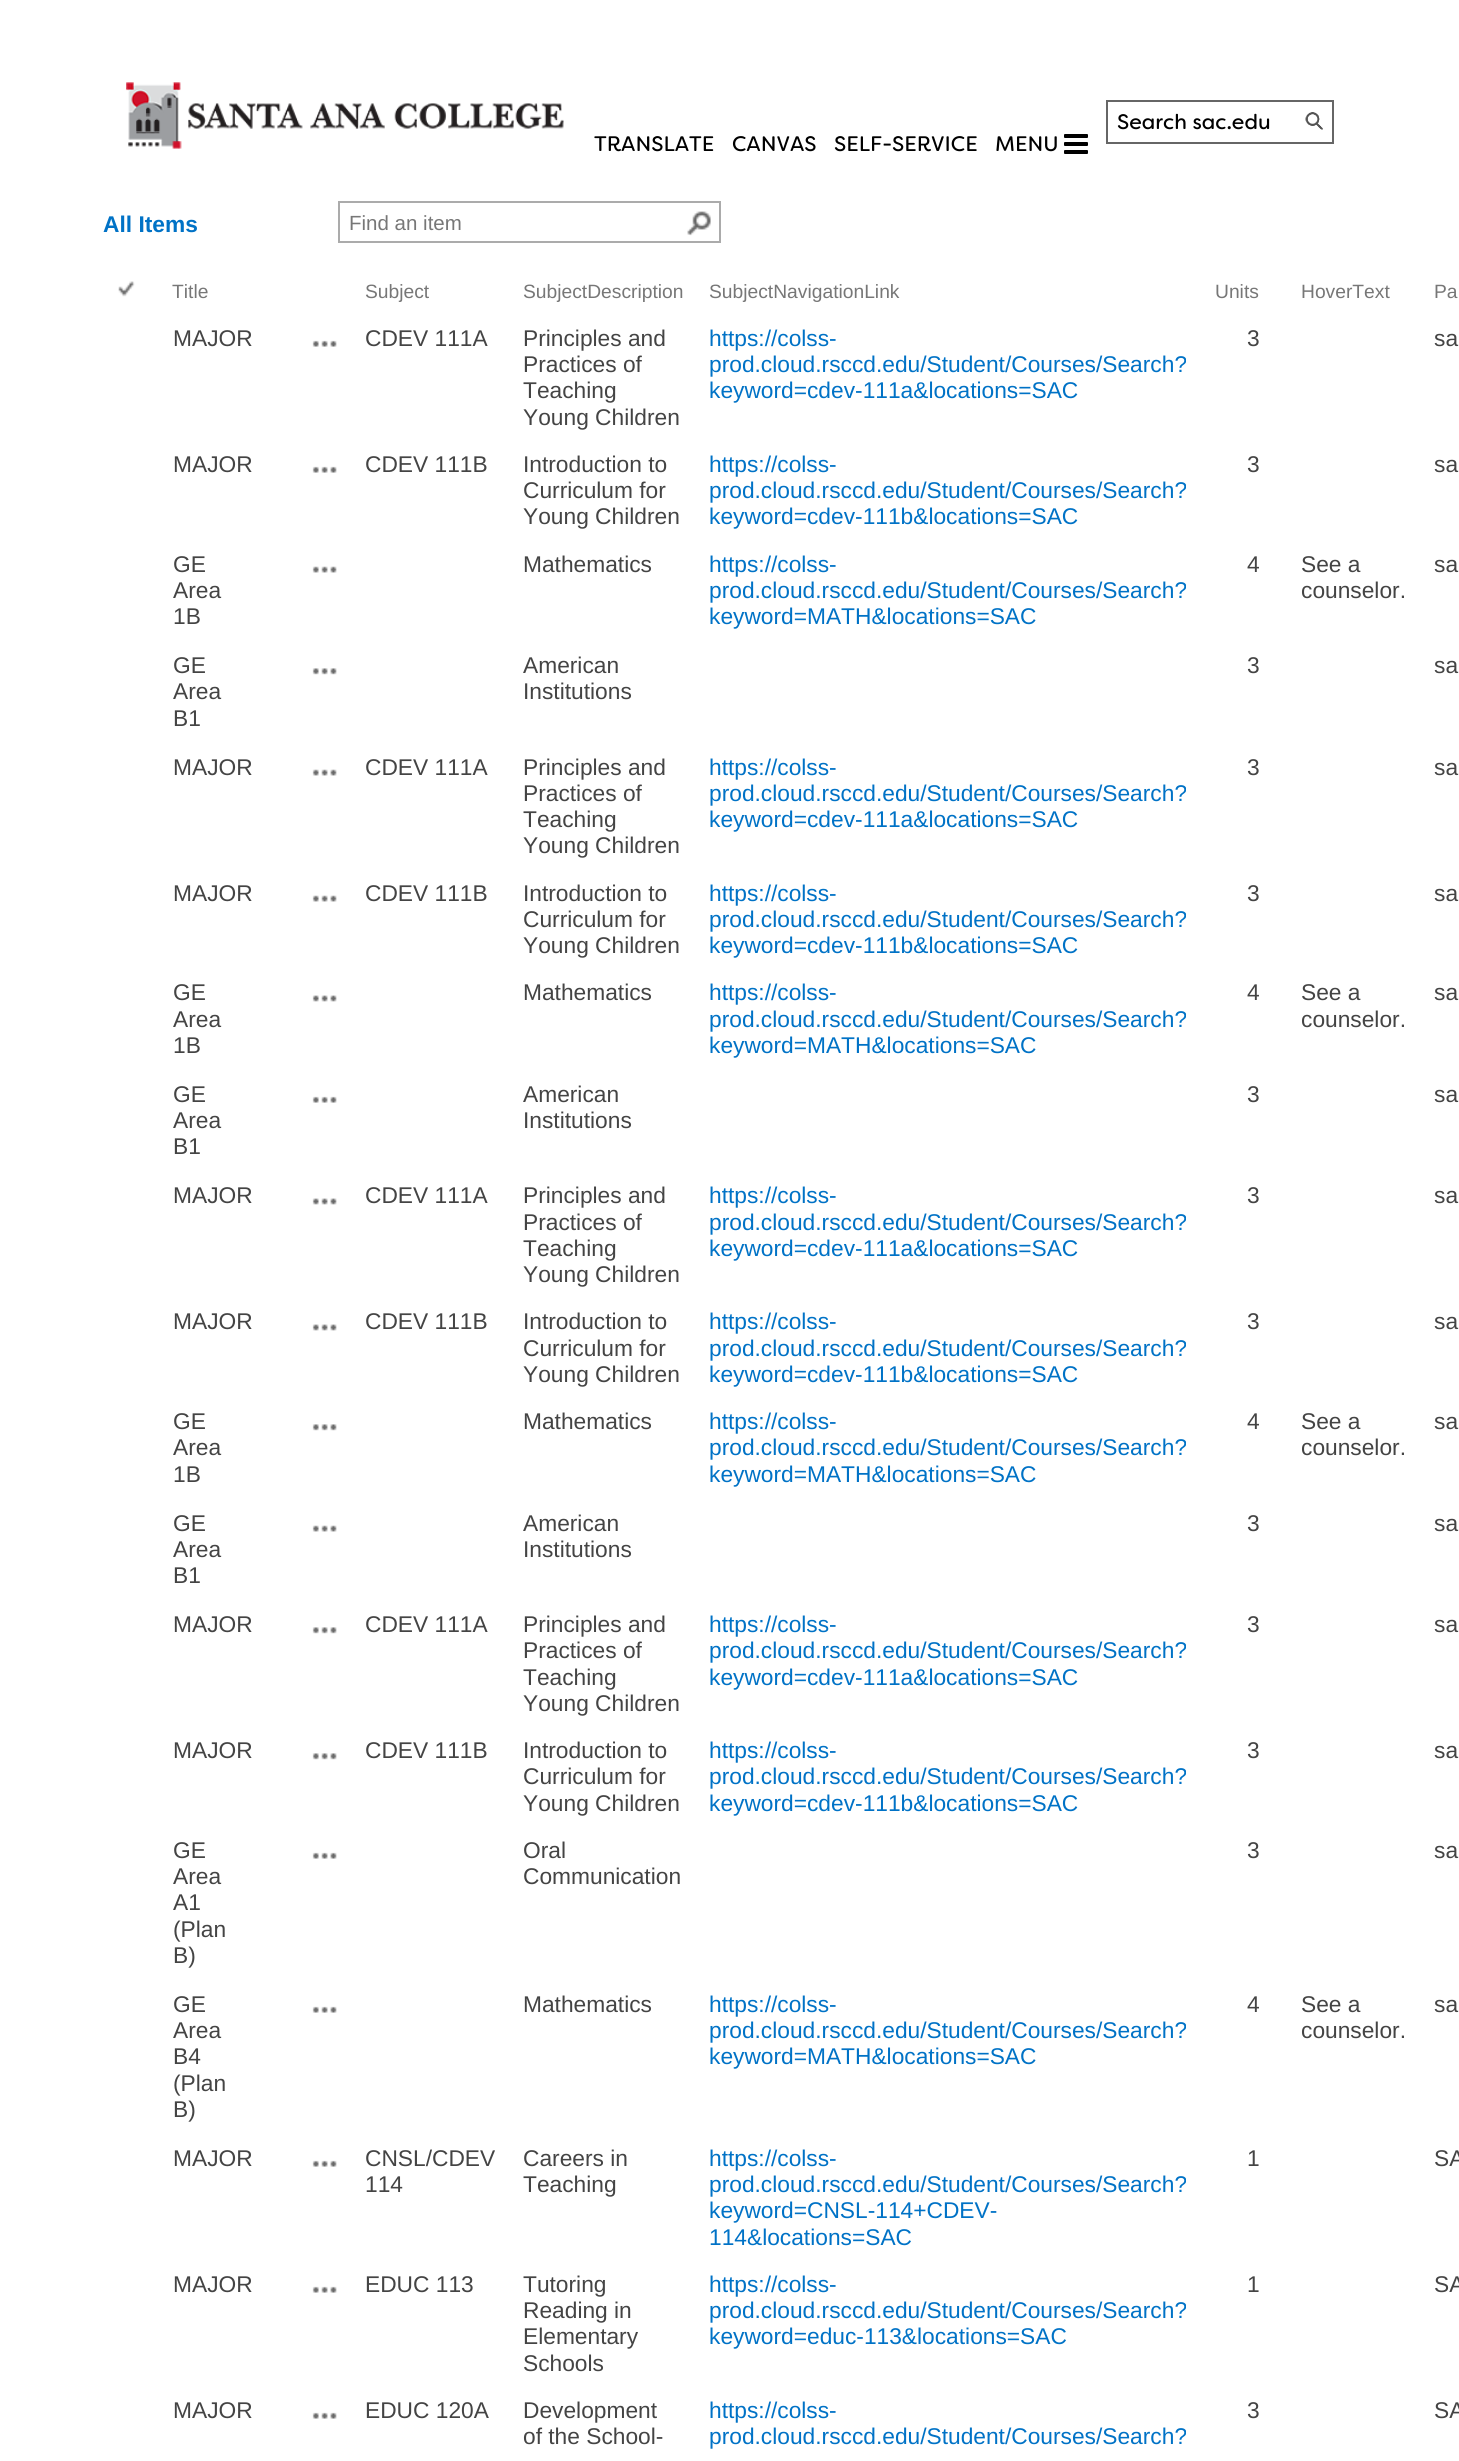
import math
import cairo

surface = cairo.ImageSurface(cairo.FORMAT_RGB24, 1459, 2461)
c = cairo.Context(surface)
options = cairo.FontOptions()
options.set_hint_metrics(cairo.HINT_METRICS_OFF)
options.set_hint_style(cairo.HINT_STYLE_NONE)
c.set_font_options(options)
c.set_miter_limit(4)
def C(code):
 c.set_source_rgb(*(v / 255 for v in bytes.fromhex(code[-6:])))
def F(family, size, italic, bold):
 c.select_font_face(family, cairo.FONT_SLANT_ITALIC if italic else cairo.FONT_SLANT_NORMAL, cairo.FONT_WEIGHT_BOLD if bold else cairo.FONT_WEIGHT_NORMAL)
 c.set_font_size(size)
def T(x, y, s):
 c.move_to(x, y)
 c.show_text(s)
def I(path, x, y, w, h):
 c.save()
 c.set_source_surface(cairo.ImageSurface.create_from_png(path), x, y)
 c.rectangle(x, y, w, h)
 c.fill()
 c.restore()
C('ffffff')
c.paint()
I('1.png',126,82,438,67)
c.rectangle(1107,101,226,42)
C('666666')
c.stroke()
F('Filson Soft',21,0,0)
C('000000')
T(1117,129,'Search sac.edu')
I('2.png',1305,112,18,18)
T(594,151,'TRANSLATE')
T(732,151,'CANVAS')
T(834,151,'SELF-SERVICE')
T(995,151,'MENU')
I('3.png',1064,134,24,20)
F('Liberation Sans',22.75,0,1)
C('0072c6')
T(103,232,'All Items')
c.rectangle(339,202,381,40)
C('ababab')
c.stroke()
F('Liberation Sans',20.5,0,0)
C('777777')
T(349,230,'Find an item')
I('4.png',687,211,24,25)
I('5.png',118,281,17,16)
F('Liberation Sans',19.25,0,0)
T(172,298,'Title')
T(365,298,'Subject')
T(523,298,'SubjectDescription')
T(709,298,'SubjectNavigationLink')
T(1215,298,'Units')
T(1301,298,'HoverText')
T(1434,298,'Pa')
F('Liberation Sans',22.75,0,0)
C('444444')
T(173,346,'MAJOR')
I('6.png',312,340,25,7)
T(365,346,'CDEV 111A')
T(523,346,'Principles and')
T(523,372,'Practices of')
T(523,398,'Teaching')
T(523,425,'Young Children')
C('0072c6')
T(709,346,'https://colss-')
T(709,372,'prod.cloud.rsccd.edu/Student/Courses/Search?')
T(709,398,'keyword=cdev-111a&locations=SAC')
C('444444')
T(1247,346,'3')
T(1434,346,'sa')
T(173,472,'MAJOR')
I('6.png',312,466,25,7)
T(365,472,'CDEV 111B')
T(523,472,'Introduction to')
T(523,498,'Curriculum for')
T(523,524,'Young Children')
C('0072c6')
T(709,472,'https://colss-')
T(709,498,'prod.cloud.rsccd.edu/Student/Courses/Search?')
T(709,524,'keyword=cdev-111b&locations=SAC')
C('444444')
T(1247,472,'3')
T(1434,472,'sa')
T(173,572,'GE')
T(173,598,'Area')
T(173,624,'1B')
I('7.png',312,566,25,7)
T(523,572,'Mathematics')
C('0072c6')
T(709,572,'https://colss-')
T(709,598,'prod.cloud.rsccd.edu/Student/Courses/Search?')
T(709,624,'keyword=MATH&locations=SAC')
C('444444')
T(1247,572,'4')
T(1301,572,'See a')
T(1301,598,'counselor.')
T(1434,572,'sa')
T(173,673,'GE')
T(173,699,'Area')
T(173,726,'B1')
I('8.png',312,668,25,7)
T(523,673,'American')
T(523,699,'Institutions')
T(1247,673,'3')
T(1434,673,'sa')
T(173,775,'MAJOR')
I('7.png',312,769,25,7)
T(365,775,'CDEV 111A')
T(523,775,'Principles and')
T(523,801,'Practices of')
T(523,827,'Teaching')
T(523,853,'Young Children')
C('0072c6')
T(709,775,'https://colss-')
T(709,801,'prod.cloud.rsccd.edu/Student/Courses/Search?')
T(709,827,'keyword=cdev-111a&locations=SAC')
C('444444')
T(1247,775,'3')
T(1434,775,'sa')
T(173,901,'MAJOR')
I('7.png',312,895,25,7)
T(365,901,'CDEV 111B')
T(523,901,'Introduction to')
T(523,927,'Curriculum for')
T(523,953,'Young Children')
C('0072c6')
T(709,901,'https://colss-')
T(709,927,'prod.cloud.rsccd.edu/Student/Courses/Search?')
T(709,953,'keyword=cdev-111b&locations=SAC')
C('444444')
T(1247,901,'3')
T(1434,901,'sa')
T(173,1000,'GE')
T(173,1027,'Area')
T(173,1053,'1B')
I('9.png',312,995,25,7)
T(523,1000,'Mathematics')
C('0072c6')
T(709,1000,'https://colss-')
T(709,1027,'prod.cloud.rsccd.edu/Student/Courses/Search?')
T(709,1053,'keyword=MATH&locations=SAC')
C('444444')
T(1247,1000,'4')
T(1301,1000,'See a')
T(1301,1027,'counselor.')
T(1434,1000,'sa')
T(173,1102,'GE')
T(173,1128,'Area')
T(173,1154,'B1')
I('6.png',312,1096,25,7)
T(523,1102,'American')
T(523,1128,'Institutions')
T(1247,1102,'3')
T(1434,1102,'sa')
T(173,1203,'MAJOR')
I('9.png',312,1198,25,7)
T(365,1203,'CDEV 111A')
T(523,1203,'Principles and')
T(523,1230,'Practices of')
T(523,1256,'Teaching')
T(523,1282,'Young Children')
C('0072c6')
T(709,1203,'https://colss-')
T(709,1230,'prod.cloud.rsccd.edu/Student/Courses/Search?')
T(709,1256,'keyword=cdev-111a&locations=SAC')
C('444444')
T(1247,1203,'3')
T(1434,1203,'sa')
T(173,1329,'MAJOR')
I('9.png',312,1324,25,7)
T(365,1329,'CDEV 111B')
T(523,1329,'Introduction to')
T(523,1356,'Curriculum for')
T(523,1382,'Young Children')
C('0072c6')
T(709,1329,'https://colss-')
T(709,1356,'prod.cloud.rsccd.edu/Student/Courses/Search?')
T(709,1382,'keyword=cdev-111b&locations=SAC')
C('444444')
T(1247,1329,'3')
T(1434,1329,'sa')
T(173,1429,'GE')
T(173,1455,'Area')
T(173,1482,'1B')
I('8.png',312,1424,25,7)
T(523,1429,'Mathematics')
C('0072c6')
T(709,1429,'https://colss-')
T(709,1455,'prod.cloud.rsccd.edu/Student/Courses/Search?')
T(709,1482,'keyword=MATH&locations=SAC')
C('444444')
T(1247,1429,'4')
T(1301,1429,'See a')
T(1301,1455,'counselor.')
T(1434,1429,'sa')
T(173,1531,'GE')
T(173,1557,'Area')
T(173,1583,'B1')
I('7.png',312,1525,25,7)
T(523,1531,'American')
T(523,1557,'Institutions')
T(1247,1531,'3')
T(1434,1531,'sa')
T(173,1632,'MAJOR')
I('8.png',312,1627,25,7)
T(365,1632,'CDEV 111A')
T(523,1632,'Principles and')
T(523,1658,'Practices of')
T(523,1685,'Teaching')
T(523,1711,'Young Children')
C('0072c6')
T(709,1632,'https://colss-')
T(709,1658,'prod.cloud.rsccd.edu/Student/Courses/Search?')
T(709,1685,'keyword=cdev-111a&locations=SAC')
C('444444')
T(1247,1632,'3')
T(1434,1632,'sa')
T(173,1758,'MAJOR')
I('8.png',312,1753,25,7)
T(365,1758,'CDEV 111B')
T(523,1758,'Introduction to')
T(523,1784,'Curriculum for')
T(523,1811,'Young Children')
C('0072c6')
T(709,1758,'https://colss-')
T(709,1784,'prod.cloud.rsccd.edu/Student/Courses/Search?')
T(709,1811,'keyword=cdev-111b&locations=SAC')
C('444444')
T(1247,1758,'3')
T(1434,1758,'sa')
T(173,1858,'GE')
T(173,1884,'Area')
T(173,1910,'A1')
T(173,1937,'(Plan')
T(173,1963,'B)')
I('6.png',312,1852,25,7)
T(523,1858,'Oral')
T(523,1884,'Communication')
T(1247,1858,'3')
T(1434,1858,'sa')
T(173,2012,'GE')
T(173,2038,'Area')
T(173,2064,'B4')
T(173,2091,'(Plan')
T(173,2117,'B)')
I('6.png',312,2006,25,7)
T(523,2012,'Mathematics')
C('0072c6')
T(709,2012,'https://colss-')
T(709,2038,'prod.cloud.rsccd.edu/Student/Courses/Search?')
T(709,2064,'keyword=MATH&locations=SAC')
C('444444')
T(1247,2012,'4')
T(1301,2012,'See a')
T(1301,2038,'counselor.')
T(1434,2012,'sa')
T(173,2166,'MAJOR')
I('6.png',312,2160,25,7)
T(365,2166,'CNSL/CDEV')
T(365,2192,'114')
T(523,2166,'Careers in')
T(523,2192,'Teaching')
C('0072c6')
T(709,2166,'https://colss-')
T(709,2192,'prod.cloud.rsccd.edu/Student/Courses/Search?')
T(709,2218,'keyword=CNSL-114+CDEV-')
T(709,2245,'114&locations=SAC')
C('444444')
T(1247,2166,'1')
T(1434,2166,'SA')
T(173,2292,'MAJOR')
I('6.png',312,2286,25,7)
T(365,2292,'EDUC 113')
T(523,2292,'Tutoring')
T(523,2318,'Reading in')
T(523,2344,'Elementary')
T(523,2371,'Schools')
C('0072c6')
T(709,2292,'https://colss-')
T(709,2318,'prod.cloud.rsccd.edu/Student/Courses/Search?')
T(709,2344,'keyword=educ-113&locations=SAC')
C('444444')
T(1247,2292,'1')
T(1434,2292,'SA')
T(173,2418,'MAJOR')
I('6.png',312,2412,25,7)
T(365,2418,'EDUC 120A')
T(523,2418,'Development')
T(523,2444,'of the School-')
C('0072c6')
T(709,2418,'https://colss-')
T(709,2444,'prod.cloud.rsccd.edu/Student/Courses/Search?')
C('444444')
T(1247,2418,'3')
T(1434,2418,'SA')
surface.write_to_png('o.png')
